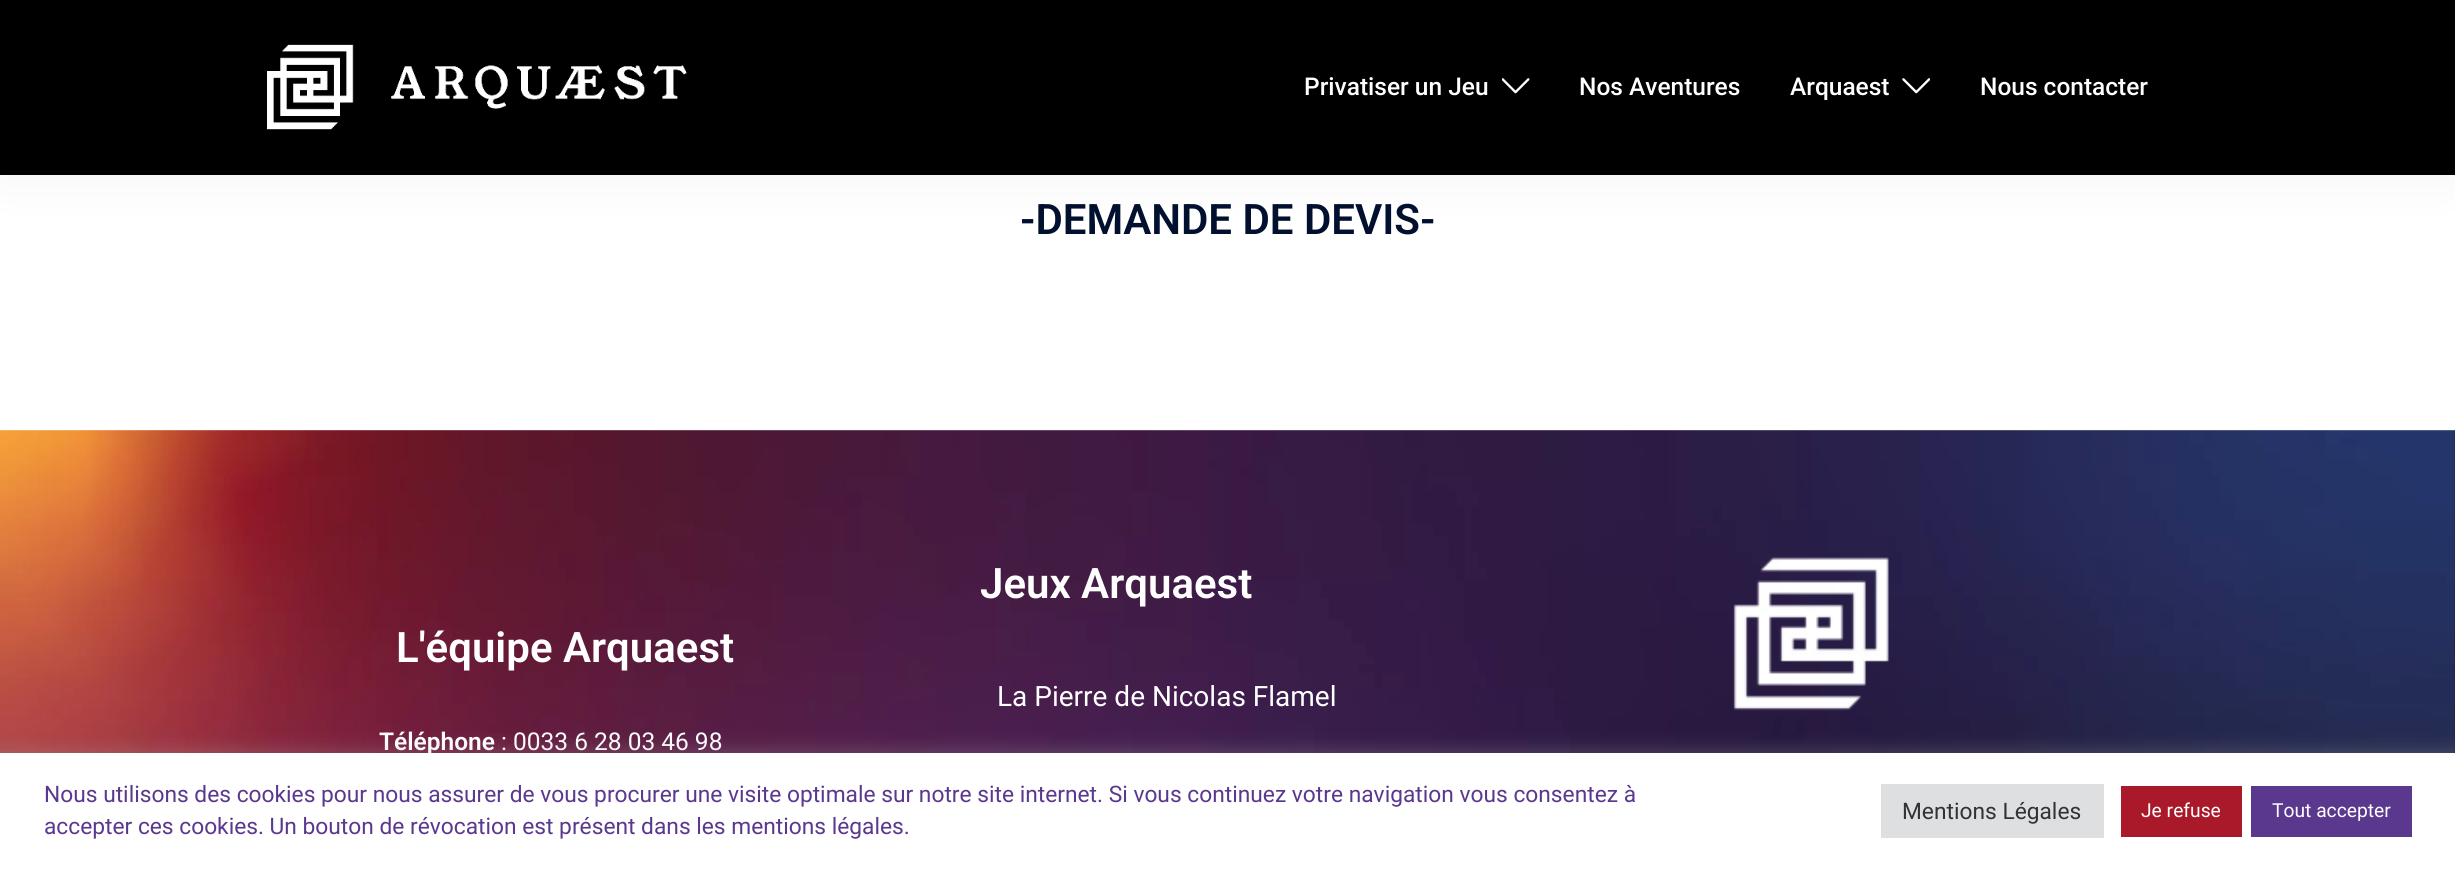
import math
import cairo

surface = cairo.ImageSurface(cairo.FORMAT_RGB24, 2455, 869)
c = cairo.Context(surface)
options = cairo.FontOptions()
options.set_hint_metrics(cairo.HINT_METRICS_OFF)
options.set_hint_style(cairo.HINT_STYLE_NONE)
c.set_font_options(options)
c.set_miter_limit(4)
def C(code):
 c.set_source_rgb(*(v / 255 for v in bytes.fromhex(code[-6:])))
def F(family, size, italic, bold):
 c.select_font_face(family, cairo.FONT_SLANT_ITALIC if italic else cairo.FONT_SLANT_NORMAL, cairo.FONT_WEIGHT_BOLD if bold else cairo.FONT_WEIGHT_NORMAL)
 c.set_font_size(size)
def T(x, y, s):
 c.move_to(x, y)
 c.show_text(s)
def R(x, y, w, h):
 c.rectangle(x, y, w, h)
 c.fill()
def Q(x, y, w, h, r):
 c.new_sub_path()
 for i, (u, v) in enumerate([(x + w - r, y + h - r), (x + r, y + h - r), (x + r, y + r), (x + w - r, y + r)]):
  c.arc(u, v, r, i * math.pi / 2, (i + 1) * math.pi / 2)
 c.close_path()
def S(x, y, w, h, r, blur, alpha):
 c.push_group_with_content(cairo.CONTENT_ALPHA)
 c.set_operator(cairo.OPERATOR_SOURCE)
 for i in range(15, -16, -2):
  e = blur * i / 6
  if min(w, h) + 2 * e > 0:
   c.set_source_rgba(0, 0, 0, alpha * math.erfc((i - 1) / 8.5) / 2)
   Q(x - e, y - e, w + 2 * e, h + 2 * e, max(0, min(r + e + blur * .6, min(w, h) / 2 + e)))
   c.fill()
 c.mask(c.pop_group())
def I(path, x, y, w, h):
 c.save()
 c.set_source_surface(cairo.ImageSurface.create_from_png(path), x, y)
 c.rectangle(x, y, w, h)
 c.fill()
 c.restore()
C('ffffff')
c.paint()
C('000000')
S(0,0,2455,175,0,26,.05)
C('000000')
R(0,0,2455,175)
I('1.png',267,44,420,86)
F('Roboto Medium',24.5,0,0)
C('ffffff')
T(1304,95,'Privatiser un Jeu')
I('2.png',1502,78,28,16)
T(1579,95,'Nos Aventures')
T(1790,95,'Arquaest')
I('3.png',1902,78,28,16)
T(1980,95,'Nous contacter')
F('Roboto SemiBold',42,0,0)
C('00102e')
T(1020,234,'-DEMANDE DE DEVIS-')
I('4.png',0,430,2455,323)
C('ffffff')
T(396,662,'L\'équipe Arquaest')
F('Roboto SemiBold',24.5,0,0)
T(379,750,'Téléphone')
F('Roboto',24.5,0,0)
T(501,750,': 0033 6 28 03 46 98')
F('Roboto SemiBold',42,0,0)
T(980,598,'Jeux Arquaest')
F('Roboto',28,0,0)
T(997,706,'La Pierre de Nicolas Flamel')
I('5.png',1733,557,156,154)
C('acabab')
S(0,751,2455,117,0,9,.3)
C('ffffff')
R(0,753,2455,116)
F('Roboto',22.75,0,0)
C('5a388e')
T(44,802,'Nous utilisons des cookies pour nous assurer de vous procurer une visite optimale sur notre site internet. Si vous continuez votre navigation vous consentez à')
T(44,834,'accepter ces cookies. Un bouton de révocation est présent dans les mentions légales.')
C('dedfe0')
R(1881,784,223,54)
C('333333')
T(1902,819,'Mentions Légales')
C('a9192a')
R(2121,786,121,51)
F('Roboto',19.25,0,0)
C('ffffff')
T(2141,817,'Je refuse')
C('5a388e')
R(2251,786,161,51)
C('ffffff')
T(2272,817,'Tout accepter')
surface.write_to_png('o.png')
